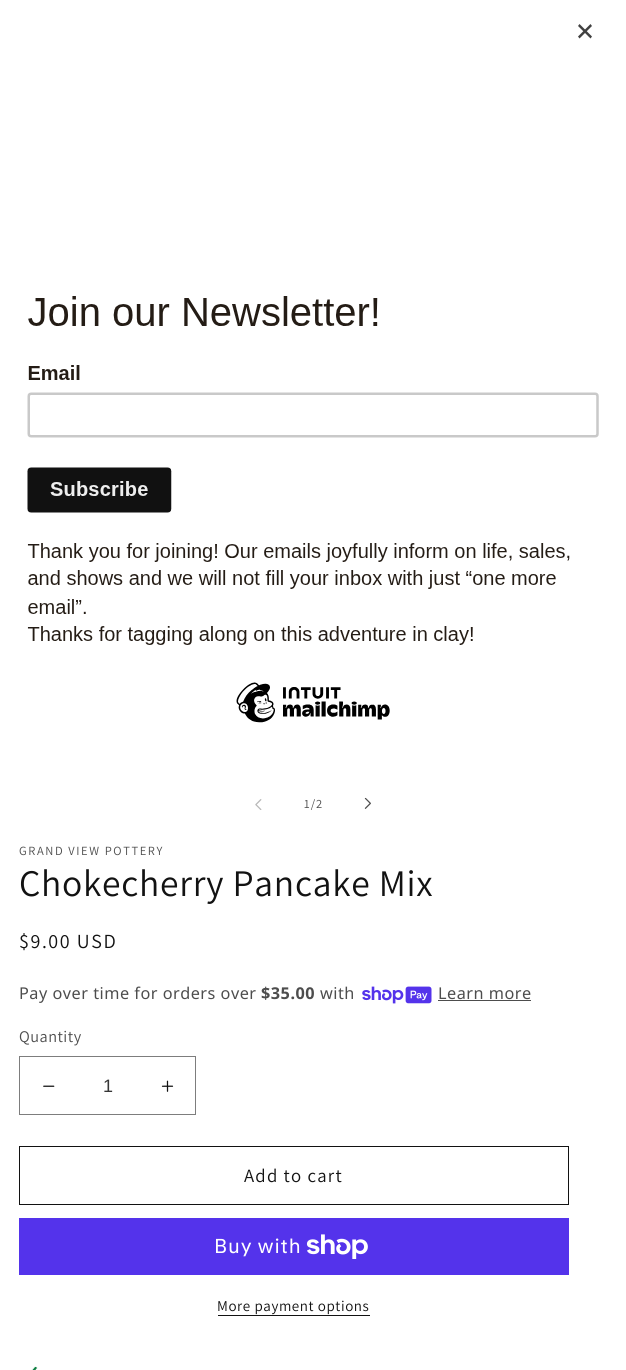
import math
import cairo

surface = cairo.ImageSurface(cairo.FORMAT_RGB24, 626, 1370)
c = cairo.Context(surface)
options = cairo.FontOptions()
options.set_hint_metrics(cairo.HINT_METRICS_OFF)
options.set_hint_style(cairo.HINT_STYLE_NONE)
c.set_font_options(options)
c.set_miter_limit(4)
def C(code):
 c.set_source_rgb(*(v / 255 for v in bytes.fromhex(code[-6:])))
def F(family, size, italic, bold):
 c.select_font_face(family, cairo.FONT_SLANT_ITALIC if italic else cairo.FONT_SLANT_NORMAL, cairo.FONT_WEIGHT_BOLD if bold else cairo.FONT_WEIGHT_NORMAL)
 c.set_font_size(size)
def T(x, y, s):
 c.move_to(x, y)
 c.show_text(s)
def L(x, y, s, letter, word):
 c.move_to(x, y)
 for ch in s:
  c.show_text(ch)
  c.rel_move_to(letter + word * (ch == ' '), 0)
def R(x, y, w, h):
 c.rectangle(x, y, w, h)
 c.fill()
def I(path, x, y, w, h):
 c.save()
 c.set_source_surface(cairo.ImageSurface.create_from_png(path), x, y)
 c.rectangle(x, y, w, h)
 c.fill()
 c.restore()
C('ffffff')
c.paint()
I('1.png',0,0,626,758)
C('414141')
c.new_path()
c.move_to(590.5,24)
c.line_to(592,26)
c.line_to(579.5,38.5)
c.line_to(578,36.5)
c.close_path()
c.fill()
c.new_path()
c.move_to(578,26)
c.line_to(579.5,24)
c.line_to(592,36.5)
c.line_to(590.5,38.5)
c.close_path()
c.fill()
I('2.png',255,799,7,11)
F('Assistant',12.5,0,0)
C('4d4d4d')
L(304,808,'1/2',1,0)
I('3.png',364,797,7,12)
L(19,855,'GRAND VIEW POTTERY',1.6,0)
F('Assistant',37.5,0,0)
C('121212')
L(19,896,'Chokecherry Pancake Mix',.75,0)
F('Assistant',20,0,0)
L(19,948,'$9.00 USD',1.6,0)
F('Noto Sans',16.25,0,0)
C('4d4d4d')
L(19,999,'Pay over time for orders over',.5,0)
F('Noto Sans',16.25,0,1)
L(261,999,'$35.00',.5,0)
F('Noto Sans',16.25,0,0)
L(320,999,'with',.5,0)
I('4.png',362,986,70,18)
L(438,999,'Learn more',.5,0)
R(438,1000,93,1)
F('Assistant',16.25,0,0)
L(19,1042,'Quantity',.5,0)
I('5.png',43,1085,12,2)
I('6.png',161,1080,13,12)
c.rectangle(19.5,1056.5,176,58)
C('7d7d7d')
c.set_line_width(1)
c.stroke()
F('Liberation Sans',18,0,0)
C('363636')
T(103,1092,'1')
c.rectangle(19.5,1146.5,549,58)
C('121212')
c.stroke()
F('Assistant',18.75,0,0)
L(244,1182,'Add to cart',1.25,0)
C('5433eb')
R(19,1218,550,57)
F('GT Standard',20,0,0)
C('ffffff')
L(214,1253,'Buy with',.75,0)
I('7.png',306,1234,62,25)
F('Assistant',15,0,0)
C('121212')
L(217,1311,'More payment options',.6,0)
R(218,1315,152,1)
I('8.png',31,1366,7,4)
surface.write_to_png('o.png')
